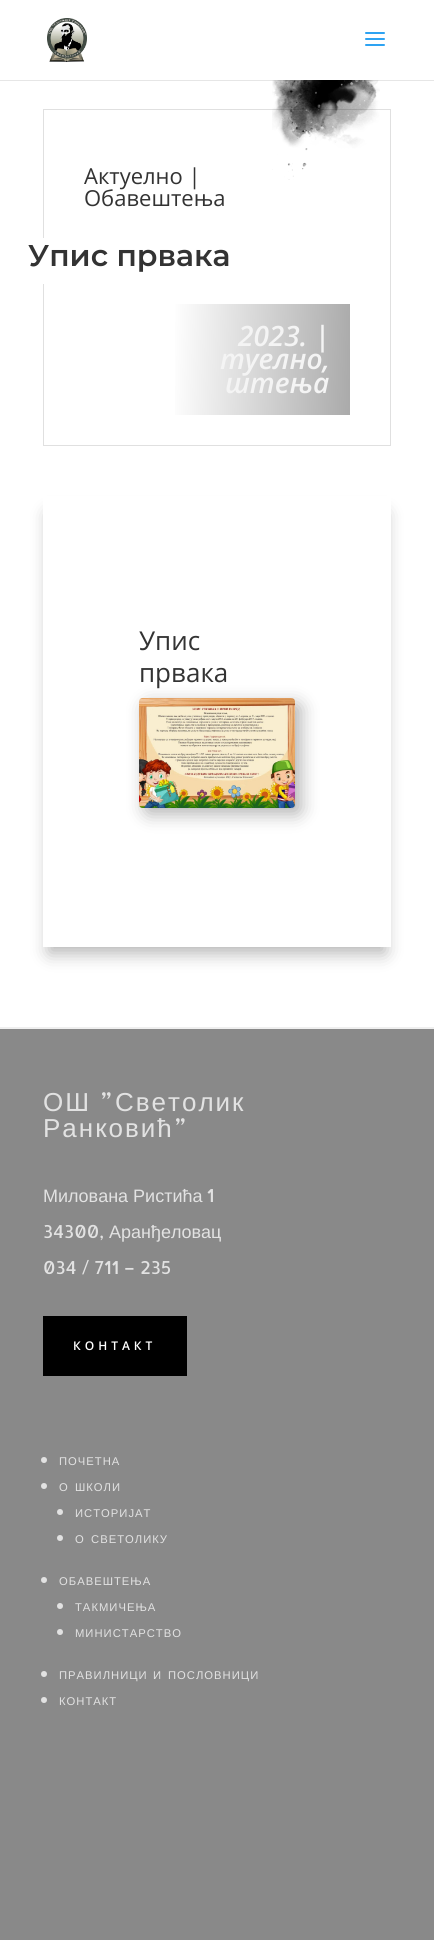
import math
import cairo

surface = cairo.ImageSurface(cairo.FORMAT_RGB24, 434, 1940)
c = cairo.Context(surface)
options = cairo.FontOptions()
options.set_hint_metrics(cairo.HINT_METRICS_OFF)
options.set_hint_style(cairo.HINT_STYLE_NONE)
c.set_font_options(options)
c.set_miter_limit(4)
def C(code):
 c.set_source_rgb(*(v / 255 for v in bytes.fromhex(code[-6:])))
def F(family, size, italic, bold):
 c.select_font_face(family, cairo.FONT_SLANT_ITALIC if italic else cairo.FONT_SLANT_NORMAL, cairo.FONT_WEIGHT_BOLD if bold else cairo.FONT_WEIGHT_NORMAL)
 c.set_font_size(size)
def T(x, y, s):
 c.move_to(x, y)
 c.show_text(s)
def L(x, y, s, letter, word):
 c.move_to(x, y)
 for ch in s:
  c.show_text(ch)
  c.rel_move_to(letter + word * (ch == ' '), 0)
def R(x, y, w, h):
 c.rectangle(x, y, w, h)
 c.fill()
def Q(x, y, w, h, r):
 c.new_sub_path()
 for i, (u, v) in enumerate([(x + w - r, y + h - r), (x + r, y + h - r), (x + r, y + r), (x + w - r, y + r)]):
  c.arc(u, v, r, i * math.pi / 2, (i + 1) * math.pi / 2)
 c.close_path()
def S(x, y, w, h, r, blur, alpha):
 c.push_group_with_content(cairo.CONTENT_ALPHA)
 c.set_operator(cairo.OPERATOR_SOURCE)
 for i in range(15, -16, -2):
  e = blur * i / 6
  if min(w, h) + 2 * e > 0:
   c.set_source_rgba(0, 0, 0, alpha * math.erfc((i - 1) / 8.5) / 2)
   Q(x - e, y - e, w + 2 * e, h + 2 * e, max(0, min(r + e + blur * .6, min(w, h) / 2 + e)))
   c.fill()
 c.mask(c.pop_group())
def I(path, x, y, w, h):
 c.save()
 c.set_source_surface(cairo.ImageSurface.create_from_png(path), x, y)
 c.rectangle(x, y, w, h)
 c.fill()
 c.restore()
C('ffffff')
c.paint()
c.rectangle(43.5,109.5,347,336)
C('e0e0e0')
c.set_line_width(1)
c.stroke()
I('3.png',272,80,108,100)
c.set_source_rgba(0,0,0,0.1)
R(0,80,434,1)
I('1.png',47,18,40,44)
I('2.png',365,32,20,14)
F('Open Sans',22,0,0)
C('333333')
T(84,184,'Актуелно |')
T(84,206,'Обавештења')
C('ffffff')
R(43,238,1,46)
F('Montserrat SemiBold',30,0,0)
C('333333')
T(28,266,'Упис првака')
gradient = cairo.LinearGradient(82,355,352,364)
gradient.add_color_stop_rgba(.33,1,1,1,1)
gradient.add_color_stop_rgba(1,0.667,0.667,0.667,1)
c.set_source(gradient)
R(175,304,175,111)
F('Open Sans SemiBold',28,1,0)
C('f4f4f4')
T(238,346,'2023. |')
T(220,369,'туелно,')
T(225,393,'штења')
c.save()
c.set_fill_rule(cairo.FILL_RULE_EVEN_ODD)
c.new_path()
c.move_to(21,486)
c.line_to(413,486)
c.line_to(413,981)
c.line_to(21,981)
c.close_path()
c.move_to(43,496)
c.line_to(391,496)
c.line_to(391,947)
c.line_to(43,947)
c.close_path()
c.clip()
C('000000')
S(49,514,336,439,0,9,.3)
c.restore()
F('Open Sans',26,0,0)
C('333333')
T(139,650,'Упис')
T(139,682,'првака')
C('000000')
S(145,704,156,110,4,9,.3)
I('4.png',139,698,156,110)
C('898989')
R(0,1029,434,911)
C('efefef')
R(0,1027,434,2)
F('Liberation Sans',26,0,0)
C('e2e2e2')
L(43,1111,'ОШ',2,0)
F('Allerta',26,0,0)
L(100,1111,'”',2,0)
F('Liberation Sans',26,0,0)
L(115,1111,'Светолик',2,0)
L(43,1137,'Ранковић',2,0)
F('Allerta',26,0,0)
L(174,1137,'”',2,0)
F('Liberation Sans',18,0,0)
T(43,1202,'Милована Ристића')
F('Allerta',18,0,0)
T(207,1202,'1')
T(43,1238,'34300,')
F('Liberation Sans',18,0,0)
T(109,1238,'Аранђеловац')
F('Allerta',18,0,0)
T(43,1274,'034 / 711 – 235')
C('000000')
R(43,1316,144,60)
F('Open Sans SemiBold',12,0,0)
C('ffffff')
L(73,1350,'КОНТАКТ',4,0)
C('e2e2e2')
c.new_path()
c.arc(44,1460,3,0,2 * math.pi)
c.fill()
F('Liberation Sans',11.25,0,0)
L(59,1465,'ПОЧЕТНА',1,0)
c.new_path()
c.arc(44,1486,3,0,2 * math.pi)
c.fill()
L(59,1491,'О',1,0)
L(75,1491,'ШКОЛИ',1,0)
c.new_path()
c.arc(60,1512,3,0,2 * math.pi)
c.fill()
L(75,1517,'ИСТОРИЈАТ',1,0)
c.new_path()
c.arc(60,1538,3,0,2 * math.pi)
c.fill()
L(75,1543,'О',1,0)
L(91,1543,'СВЕТОЛИКУ',1,0)
c.new_path()
c.arc(44,1580,3,0,2 * math.pi)
c.fill()
L(59,1585,'ОБАВЕШТЕЊА',1,0)
c.new_path()
c.arc(60,1606,3,0,2 * math.pi)
c.fill()
L(75,1611,'ТАКМИЧЕЊА',1,0)
c.new_path()
c.arc(60,1632,3,0,2 * math.pi)
c.fill()
L(75,1637,'МИНИСТАРСТВО',1,0)
c.new_path()
c.arc(44,1674,3,0,2 * math.pi)
c.fill()
L(59,1679,'ПРАВИЛНИЦИ',1,0)
L(153,1679,'И',1,0)
L(168,1679,'ПОСЛОВНИЦИ',1,0)
c.new_path()
c.arc(44,1700,3,0,2 * math.pi)
c.fill()
L(59,1705,'КОНТАКТ',1,0)
surface.write_to_png('o.png')
